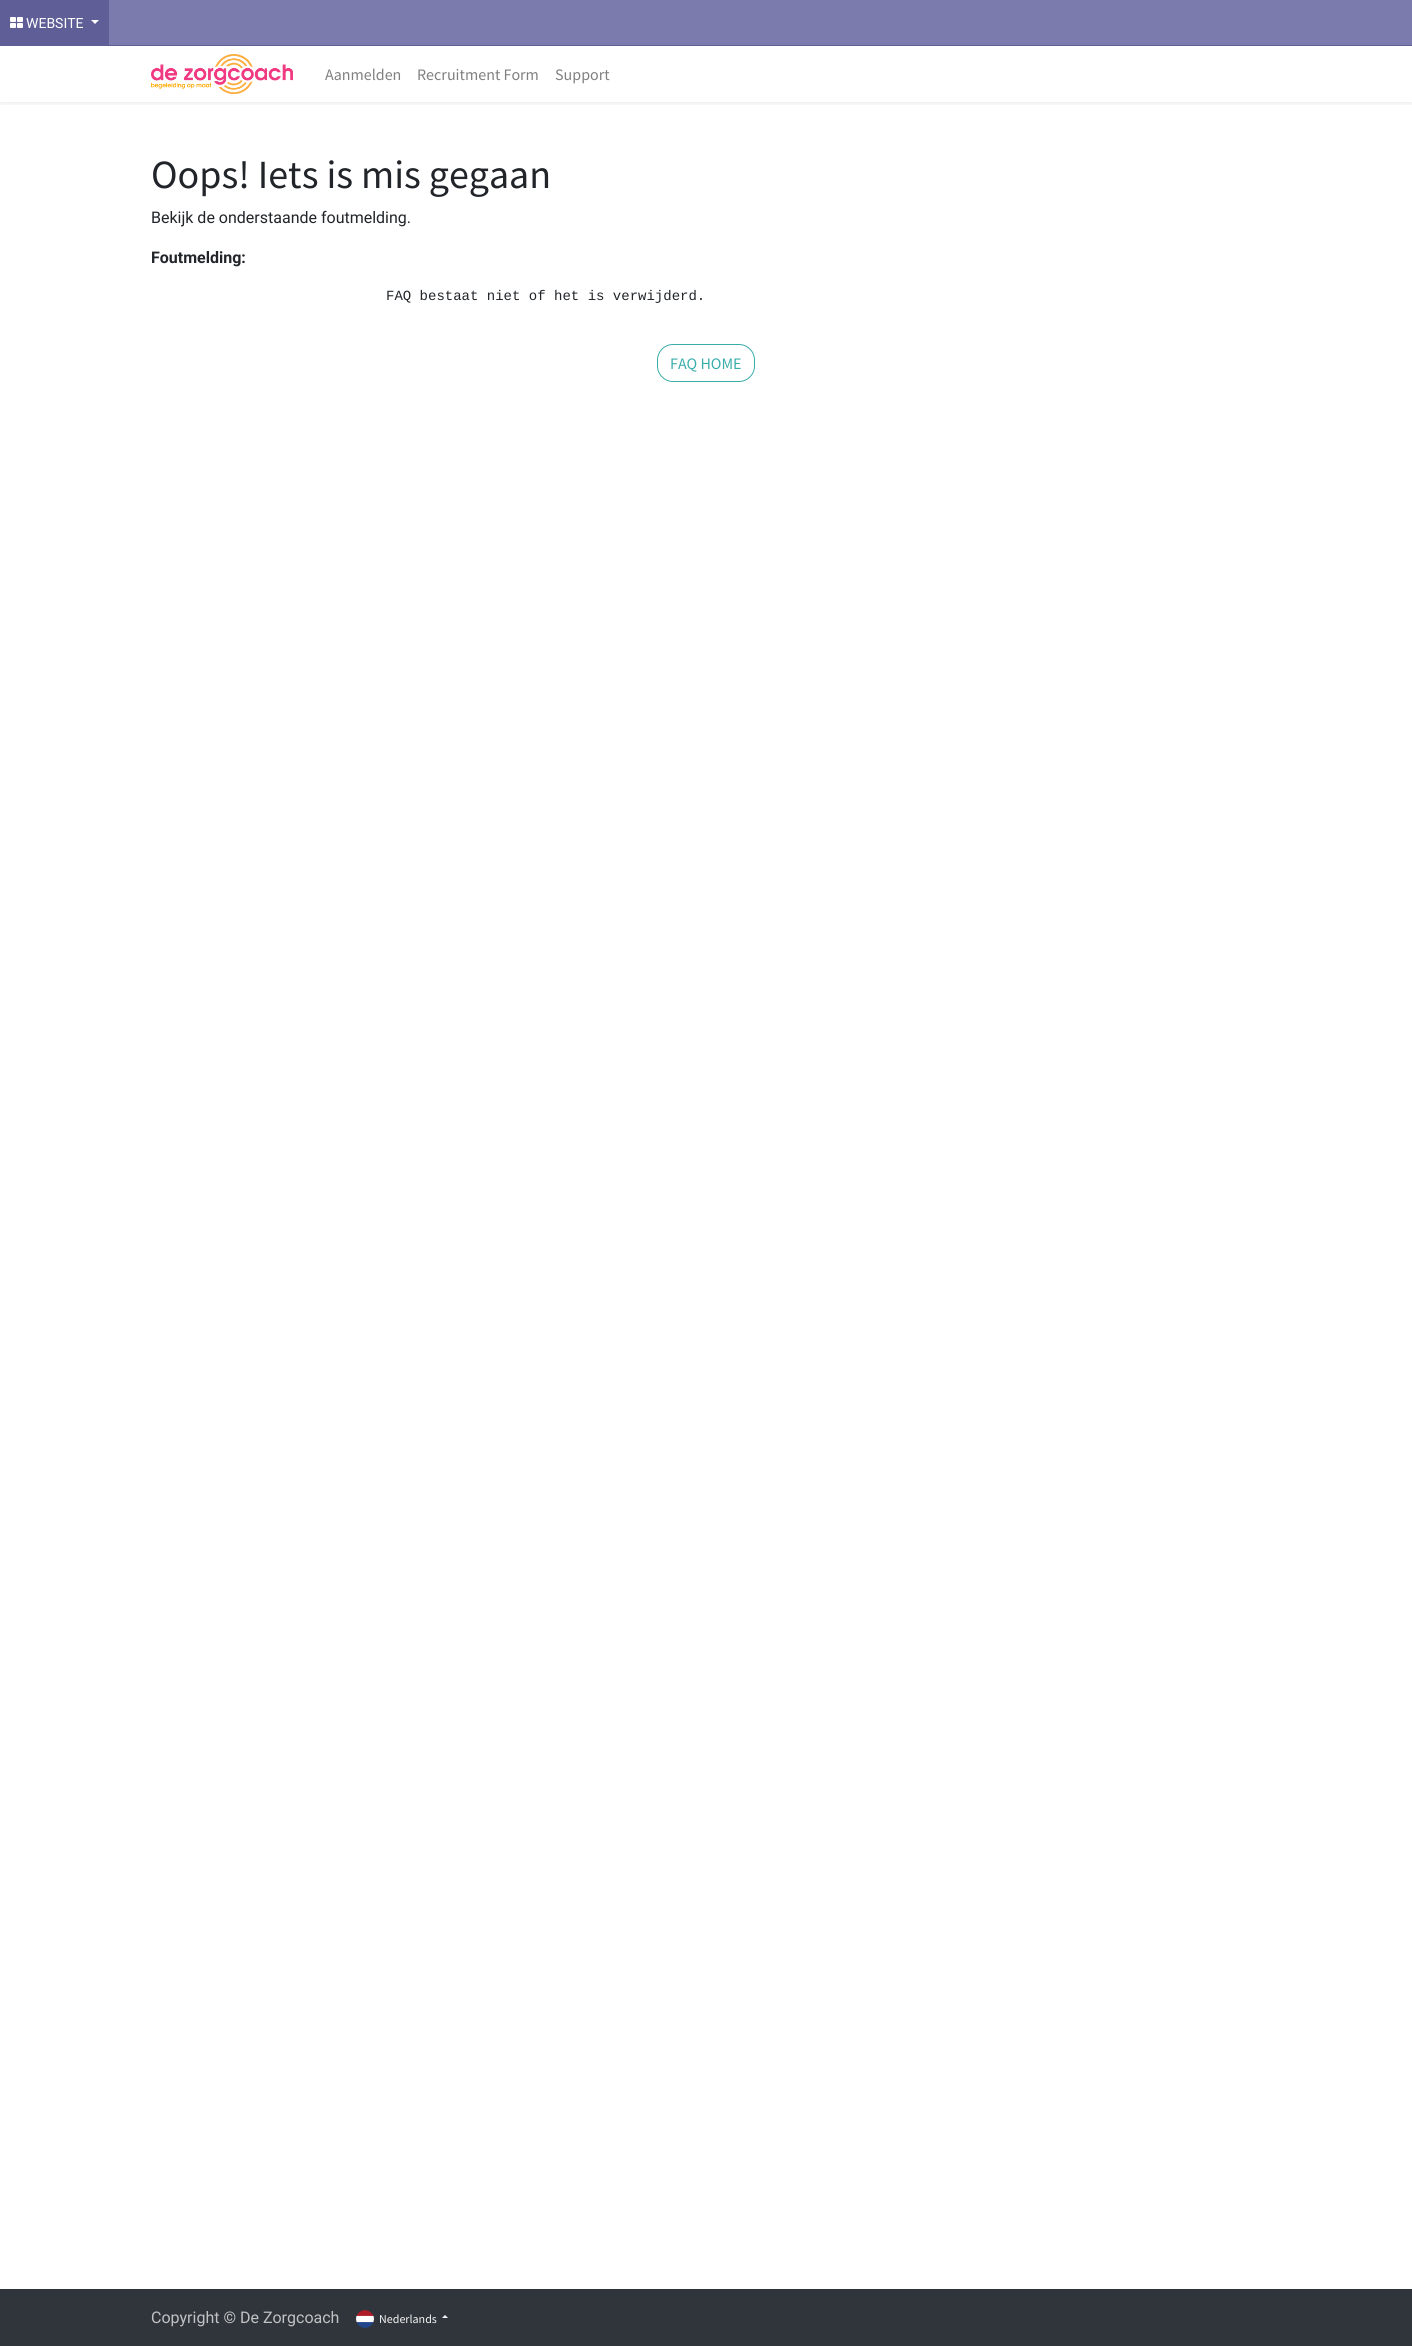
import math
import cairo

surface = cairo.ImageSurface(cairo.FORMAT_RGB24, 1412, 2346)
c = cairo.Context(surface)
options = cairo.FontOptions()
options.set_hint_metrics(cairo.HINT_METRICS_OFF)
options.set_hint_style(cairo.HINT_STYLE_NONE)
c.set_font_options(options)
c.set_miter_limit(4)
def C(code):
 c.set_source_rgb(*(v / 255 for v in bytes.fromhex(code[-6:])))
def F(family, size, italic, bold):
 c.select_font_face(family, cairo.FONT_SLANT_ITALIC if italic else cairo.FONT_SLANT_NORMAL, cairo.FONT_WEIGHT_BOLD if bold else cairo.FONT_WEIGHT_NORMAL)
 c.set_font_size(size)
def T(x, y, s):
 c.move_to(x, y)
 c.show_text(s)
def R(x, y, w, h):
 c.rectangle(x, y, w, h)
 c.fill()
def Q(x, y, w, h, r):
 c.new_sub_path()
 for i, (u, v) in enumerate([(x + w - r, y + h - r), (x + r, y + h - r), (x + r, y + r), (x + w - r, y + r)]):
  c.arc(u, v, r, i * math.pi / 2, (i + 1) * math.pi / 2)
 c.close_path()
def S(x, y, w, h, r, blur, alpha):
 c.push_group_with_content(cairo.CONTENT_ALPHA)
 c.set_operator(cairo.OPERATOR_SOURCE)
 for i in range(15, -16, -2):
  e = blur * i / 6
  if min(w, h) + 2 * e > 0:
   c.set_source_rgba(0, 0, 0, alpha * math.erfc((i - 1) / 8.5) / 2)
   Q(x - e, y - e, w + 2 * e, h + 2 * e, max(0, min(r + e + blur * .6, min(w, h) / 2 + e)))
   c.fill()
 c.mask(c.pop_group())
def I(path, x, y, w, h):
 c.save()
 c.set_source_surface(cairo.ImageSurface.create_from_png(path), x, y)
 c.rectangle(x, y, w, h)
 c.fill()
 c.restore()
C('ffffff')
c.paint()
c.save()
c.rectangle(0,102,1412,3)
c.clip()
C('000000')
S(0,48,1412,56,0,2,.07)
c.restore()
C('7c7bad')
R(109,0,1303,45)
C('5f5e97')
R(109,45,1303,1)
R(0,0,109,46)
I('1.png',10,17,13,11)
F('Roboto',14,0,0)
C('ffffff')
T(26,28,'WEBSITE')
c.new_path()
c.move_to(91,20)
c.line_to(99,20)
c.line_to(95,24)
c.close_path()
c.fill()
I('2.png',151,54,142,40)
F('Source Sans Pro',16,0,0)
C('808080')
T(325,80,'Aanmelden')
T(417,80,'Recruitment Form')
T(555,80,'Support')
F('Source Sans Pro',40,0,0)
C('212529')
T(151,188,'Oops! Iets is mis gegaan')
F('Roboto',16,0,0)
T(151,223,'Bekijk de onderstaande foutmelding.')
F('Roboto',16,0,1)
T(151,263,'Foutmelding:')
F('Liberation Mono',14,0,0)
T(386,300,'FAQ bestaat niet of het is verwijderd.')
Q(657.5,344.5,97,37,15.5)
C('3aadaa')
c.set_line_width(1)
c.stroke()
F('Source Sans Pro',16,0,0)
T(670,369,'FAQ HOME')
C('30353b')
R(0,2289,1412,57)
F('Roboto',16,0,0)
C('c1c2c4')
T(151,2323,'Copyright © De Zorgcoach')
I('3.png',356,2310,18,18)
F('Source Sans Pro',12,0,0)
C('f6f6f6')
T(379,2323,'Nederlands')
c.new_path()
c.move_to(448,2318)
c.line_to(442,2318)
c.line_to(445,2315)
c.close_path()
c.fill()
surface.write_to_png('o.png')
